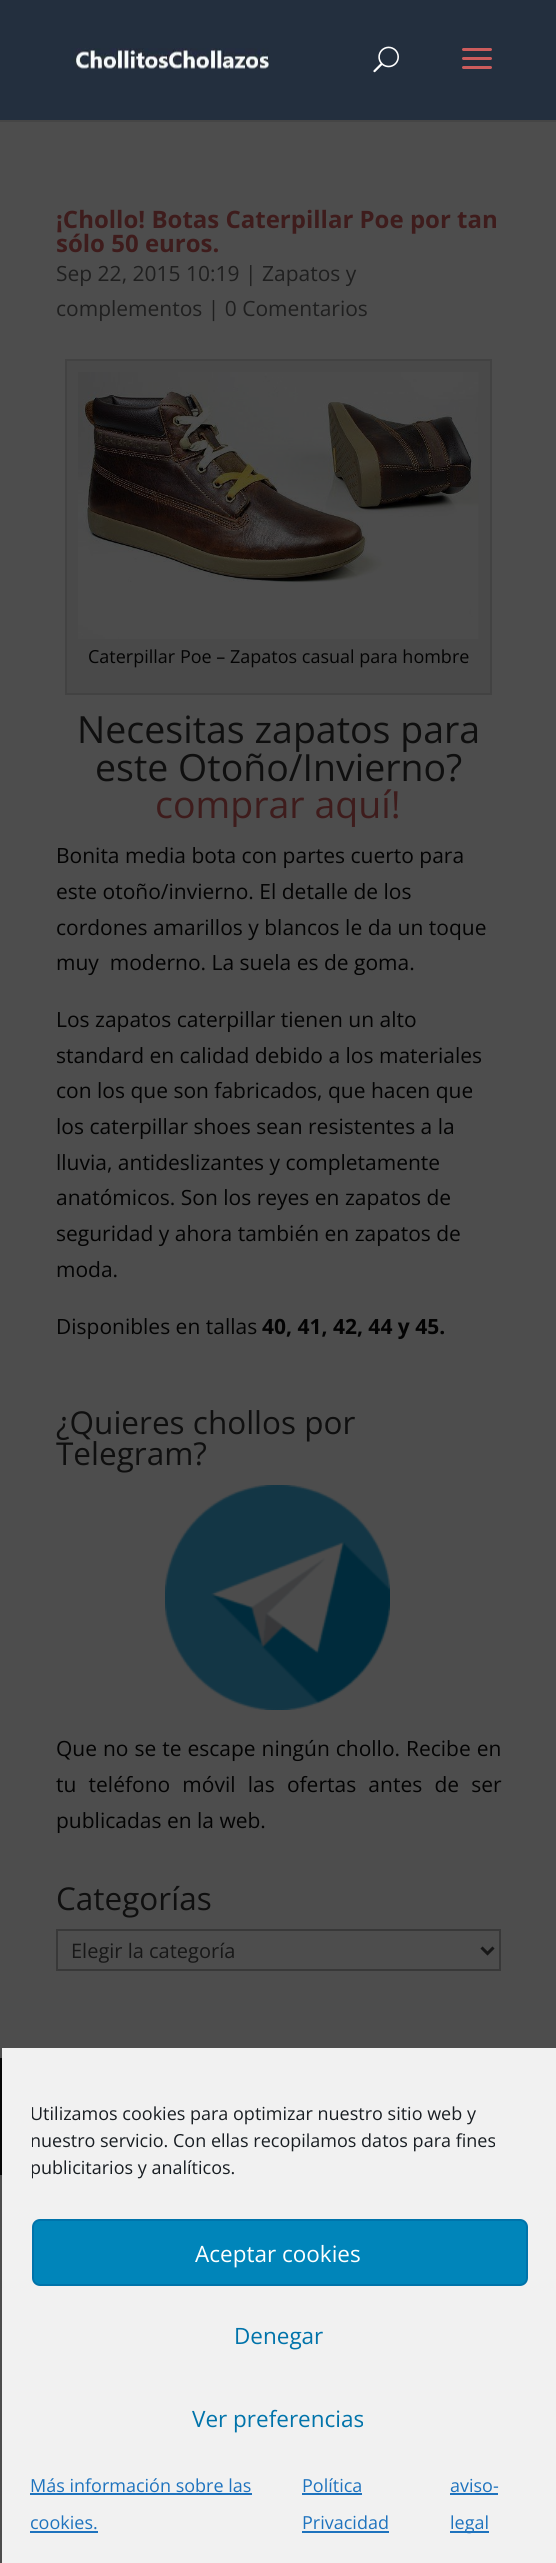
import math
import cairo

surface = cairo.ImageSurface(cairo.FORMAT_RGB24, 556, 2563)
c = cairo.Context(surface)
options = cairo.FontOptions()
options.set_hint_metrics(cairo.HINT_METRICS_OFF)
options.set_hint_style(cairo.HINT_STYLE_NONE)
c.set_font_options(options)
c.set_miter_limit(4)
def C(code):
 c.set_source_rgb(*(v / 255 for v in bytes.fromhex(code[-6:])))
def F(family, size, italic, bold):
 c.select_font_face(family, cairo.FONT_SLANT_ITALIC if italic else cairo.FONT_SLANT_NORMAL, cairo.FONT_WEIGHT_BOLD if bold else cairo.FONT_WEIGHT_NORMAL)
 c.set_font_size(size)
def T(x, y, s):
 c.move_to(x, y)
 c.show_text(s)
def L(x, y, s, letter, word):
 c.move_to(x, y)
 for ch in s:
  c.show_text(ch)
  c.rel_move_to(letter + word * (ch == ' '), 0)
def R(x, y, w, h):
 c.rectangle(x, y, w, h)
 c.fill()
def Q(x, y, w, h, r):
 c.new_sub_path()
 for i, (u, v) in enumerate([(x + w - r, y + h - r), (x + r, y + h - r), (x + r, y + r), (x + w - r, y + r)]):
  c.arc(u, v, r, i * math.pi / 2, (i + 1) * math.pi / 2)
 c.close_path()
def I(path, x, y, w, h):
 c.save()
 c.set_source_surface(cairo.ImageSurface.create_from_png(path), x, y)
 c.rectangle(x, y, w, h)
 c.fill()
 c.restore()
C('4d4d4d')
c.paint()
C('454545')
c.new_path()
c.move_to(0,120)
c.line_to(0,122)
c.line_to(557,122)
c.line_to(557,2)
c.line_to(556,2)
c.line_to(556,120)
c.close_path()
c.fill()
C('232f3e')
R(0,0,556,120)
I('1.png',71,48,198,21)
I('2.png',373,46,26,27)
I('3.png',462,48,30,21)
F('Open Sans',24,0,1)
C('3e1c1c')
T(56,228,'¡Chollo! Botas Caterpillar Poe por tan')
T(56,252,'sólo 50 euros.')
F('Open Sans',21,0,0)
C('1f1f1f')
T(56,281,'Sep 22, 2015 10:19 | Zapatos y')
T(56,316,'complementos | 0 Comentarios')
C('494949')
c.rectangle(66,360,425,334)
c.fill_preserve()
C('424242')
c.stroke()
I('4.png',78,372,401,267)
F('Open Sans',18,0,0)
C('030303')
T(88,663,'Caterpillar Poe – Zapatos casual para hombre')
F('Open Sans',37.5,0,0)
C('0f0f0f')
T(77,743,'Necesitas zapatos para')
T(95,781,'este Otoño/Invierno?')
C('3e1c1c')
T(155,818,'comprar aquí!')
F('Open Sans',21,0,0)
C('030303')
T(56,863,'Bonita media bota con partes cuerto para')
T(56,899,'este otoño/invierno. El detalle de los')
T(56,935,'cordones amarillos y blancos le da un toque')
T(56,970,'muy  moderno. La suela es de goma.')
T(56,1027,'Los zapatos caterpillar tienen un alto')
T(56,1063,'standard en calidad debido a los materiales')
T(56,1098,'con los que son fabricados, que hacen que')
T(56,1134,'los caterpillar shoes sean resistentes a la')
T(56,1170,'lluvia, antideslizantes y completamente')
T(56,1205,'anatómicos. Son los reyes en zapatos de')
T(56,1241,'seguridad y ahora también en zapatos de')
T(56,1277,'moda.')
T(56,1334,'Disponibles en tallas')
F('Open Sans',21,0,1)
T(262,1334,'40, 41, 42, 44 y 45.')
F('Open Sans',31.5,0,0)
C('0f0f0f')
T(56,1434,'¿Quieres chollos por')
T(56,1465,'Telegram?')
I('5.png',165,1485,225,225)
F('Open Sans',21,0,0)
C('030303')
L(56,1756,'Que no se te escape ningún chollo. Recibe en',0,.5)
L(56,1792,'tu teléfono móvil las ofertas antes de ser',0,6.75)
T(56,1828,'publicadas en la web.')
F('Open Sans',31.5,0,0)
C('0f0f0f')
T(56,1910,'Categorías')
c.rectangle(57,1930,443,40)
C('383838')
c.stroke()
c.new_path()
c.move_to(481.5,1947.5)
c.line_to(487.5,1953.5)
c.line_to(493.5,1947.5)
C('171717')
c.set_line_width(3)
c.stroke()
F('Open Sans',20,0,0)
T(71,1958,'Elegir la categoría')
C('070707')
R(0,2058,2,117)
C('f1f1f1')
R(2,2048,554,515)
c.save()
c.rectangle(32,2100,496,89)
c.clip()
F('Open Sans',18,0,0)
C('191e23')
T(30,2120,'Utilizamos cookies para optimizar nuestro sitio web y')
T(30,2147,'nuestro servicio. Con ellas recopilamos datos para fines')
T(30,2174,'publicitarios y analíticos.')
c.restore()
C('0085ba')
Q(33,2220,494,65,7)
c.fill_preserve()
C('0073aa')
c.set_line_width(2)
c.stroke()
F('Open Sans',22.5,0,0)
C('ffffff')
T(195,2262,'Aceptar cookies')
C('0073aa')
T(234,2344,'Denegar')
T(192,2427,'Ver preferencias')
F('Open Sans',18,0,0)
C('1e73be')
T(30,2492,'Más información sobre las')
R(30,2493,222,2)
T(30,2529,'cookies.')
R(30,2531,68,2)
T(302,2492,'Política')
R(302,2493,60,2)
T(302,2529,'Privacidad')
R(302,2531,87,2)
T(450,2492,'aviso-')
R(450,2493,48,2)
R(450,2531,39,2)
T(450,2529,'legal')
surface.write_to_png('o.png')
